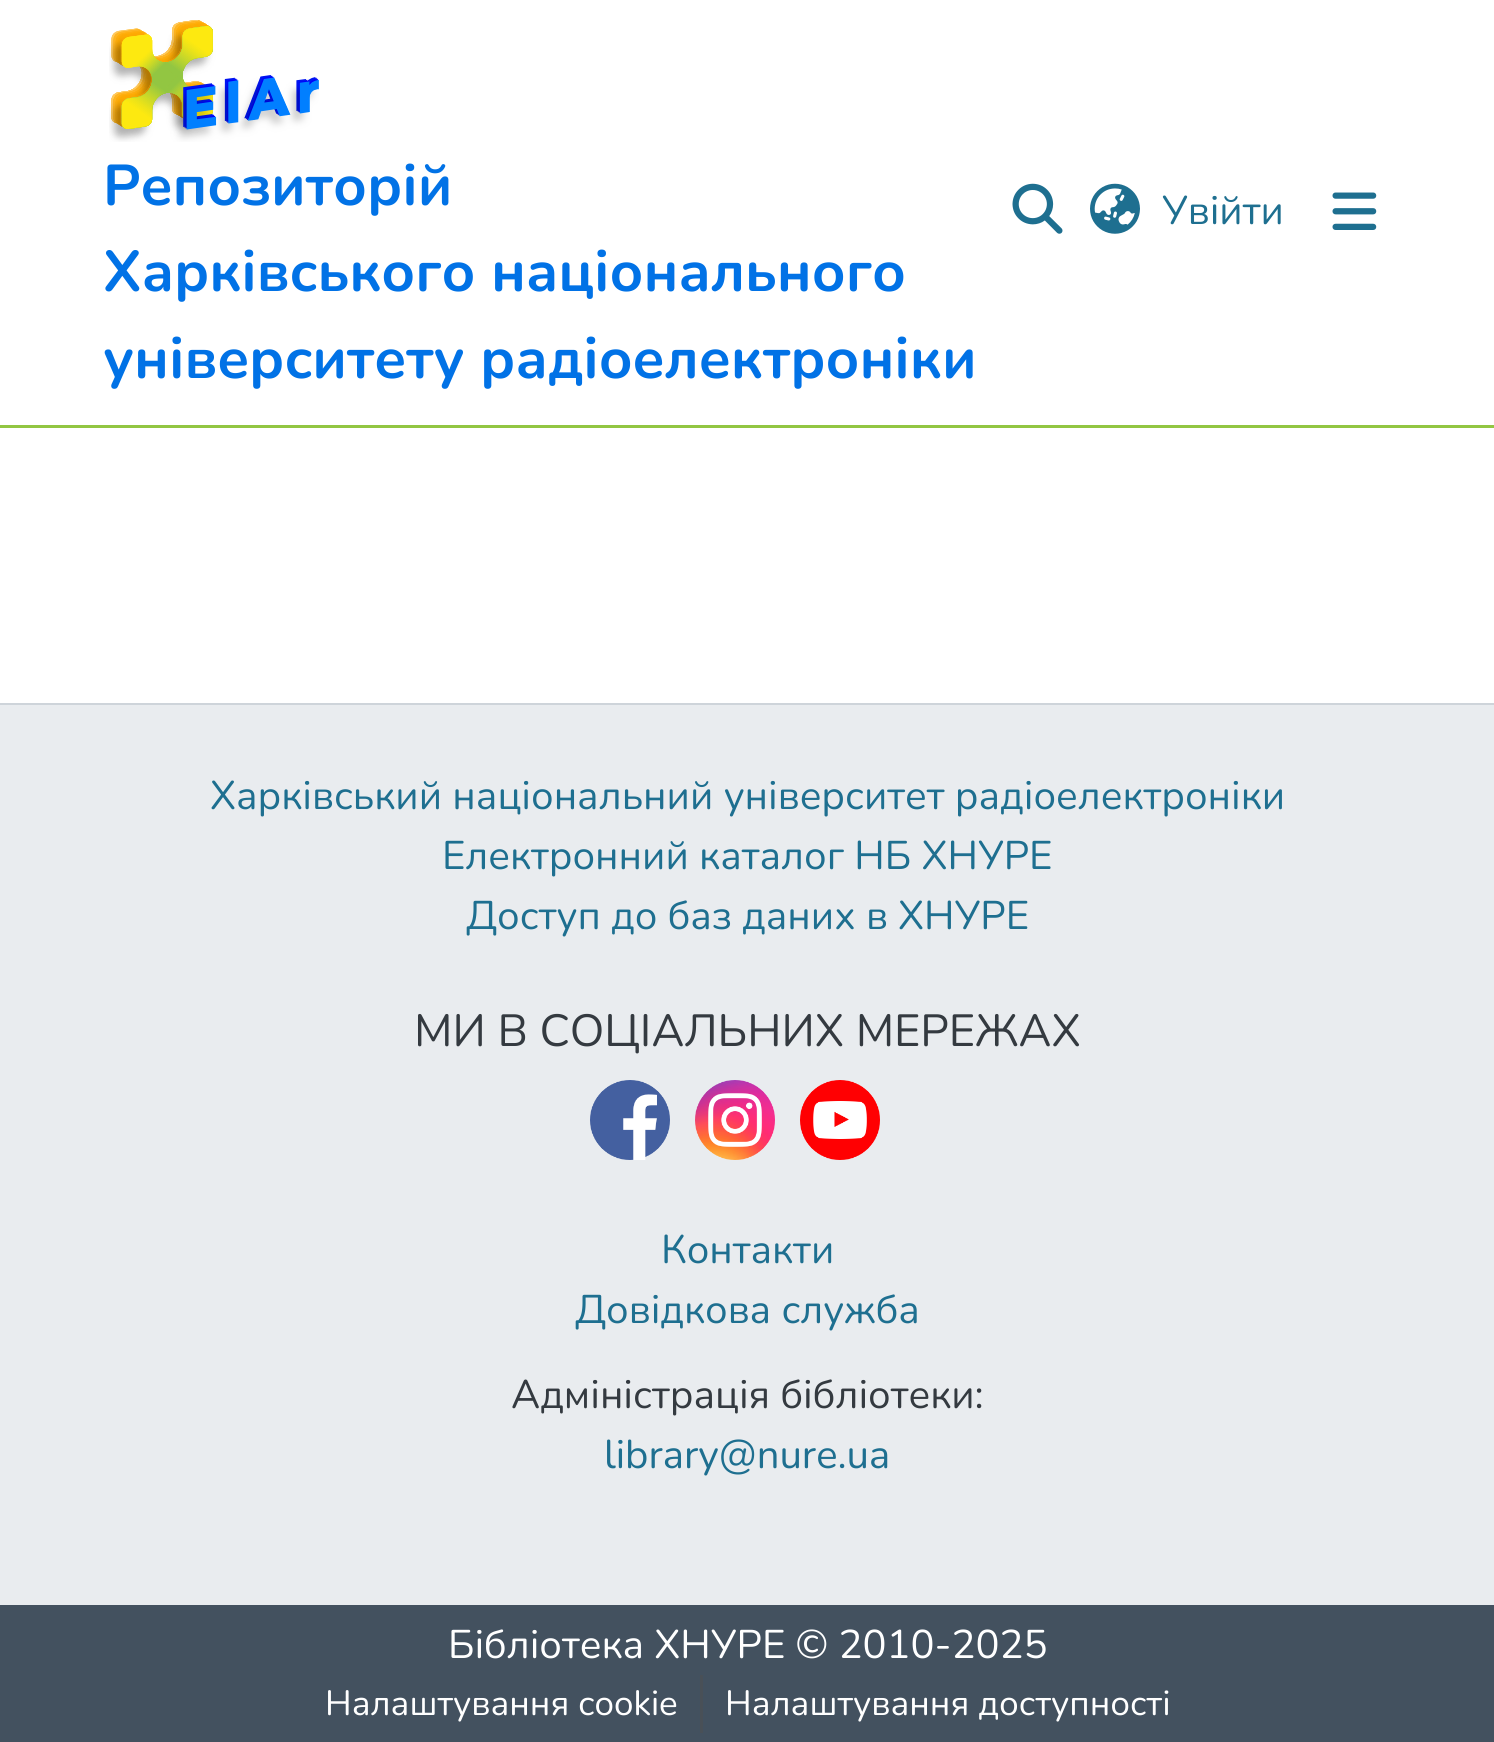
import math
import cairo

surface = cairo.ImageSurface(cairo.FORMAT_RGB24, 1494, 1742)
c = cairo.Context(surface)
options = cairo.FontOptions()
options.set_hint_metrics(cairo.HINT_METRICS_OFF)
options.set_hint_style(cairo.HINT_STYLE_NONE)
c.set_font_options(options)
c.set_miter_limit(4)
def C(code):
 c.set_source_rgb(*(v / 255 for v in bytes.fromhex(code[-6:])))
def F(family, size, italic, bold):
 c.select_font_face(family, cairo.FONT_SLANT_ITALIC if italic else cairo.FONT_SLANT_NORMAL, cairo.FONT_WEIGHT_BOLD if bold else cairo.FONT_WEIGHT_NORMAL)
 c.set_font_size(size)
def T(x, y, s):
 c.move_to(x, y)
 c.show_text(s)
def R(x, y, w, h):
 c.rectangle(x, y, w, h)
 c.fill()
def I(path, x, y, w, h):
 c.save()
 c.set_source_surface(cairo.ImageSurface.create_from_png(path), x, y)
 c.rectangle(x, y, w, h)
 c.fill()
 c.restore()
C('ffffff')
c.paint()
C('92c642')
R(0,425,1494,3)
I('1.png',109,20,210,122)
F('Nunito',57.5,0,1)
C('0172e6')
T(103,205,'Репозиторій')
T(103,291,'Харківського національного')
T(103,378,'університету радіоелектроніки')
I('2.png',1012,183,51,51)
I('3.png',1090,183,50,51)
F('Nunito',40,0,0)
C('1e6f90')
T(1162,224,'Увійти')
I('4.png',1332,192,45,38)
C('43515f')
R(0,1605,1494,137)
C('ced4da')
R(0,703,1494,2)
C('e9ecef')
R(0,705,1494,900)
C('1e6f90')
T(210,809,'Харківський національний університет радіоелектроніки')
T(442,869,'Електронний каталог НБ ХНУРЕ')
T(466,929,'Доступ до баз даних в ХНУРЕ')
F('Nunito',45,0,0)
C('343a40')
T(414,1046,'МИ В СОЦІАЛЬНИХ МЕРЕЖАХ')
I('5.png',590,1080,80,80)
I('6.png',695,1080,80,80)
I('7.png',800,1080,80,80)
F('Nunito',40,0,0)
C('1e6f90')
T(661,1263,'Контакти')
T(575,1323,'Довідкова служба')
C('343a40')
T(511,1408,'Адміністрація бібліотеки:')
C('1e6f90')
T(604,1468,'library@nure.ua')
C('ffffff')
T(448,1658,'Бібліотека ХНУРЕ © 2010-2025')
F('Nunito',35,0,0)
T(325,1715,'Налаштування cookie')
C('495057')
R(700,1675,3,58)
C('ffffff')
T(725,1715,'Налаштування доступності')
surface.write_to_png('o.png')
